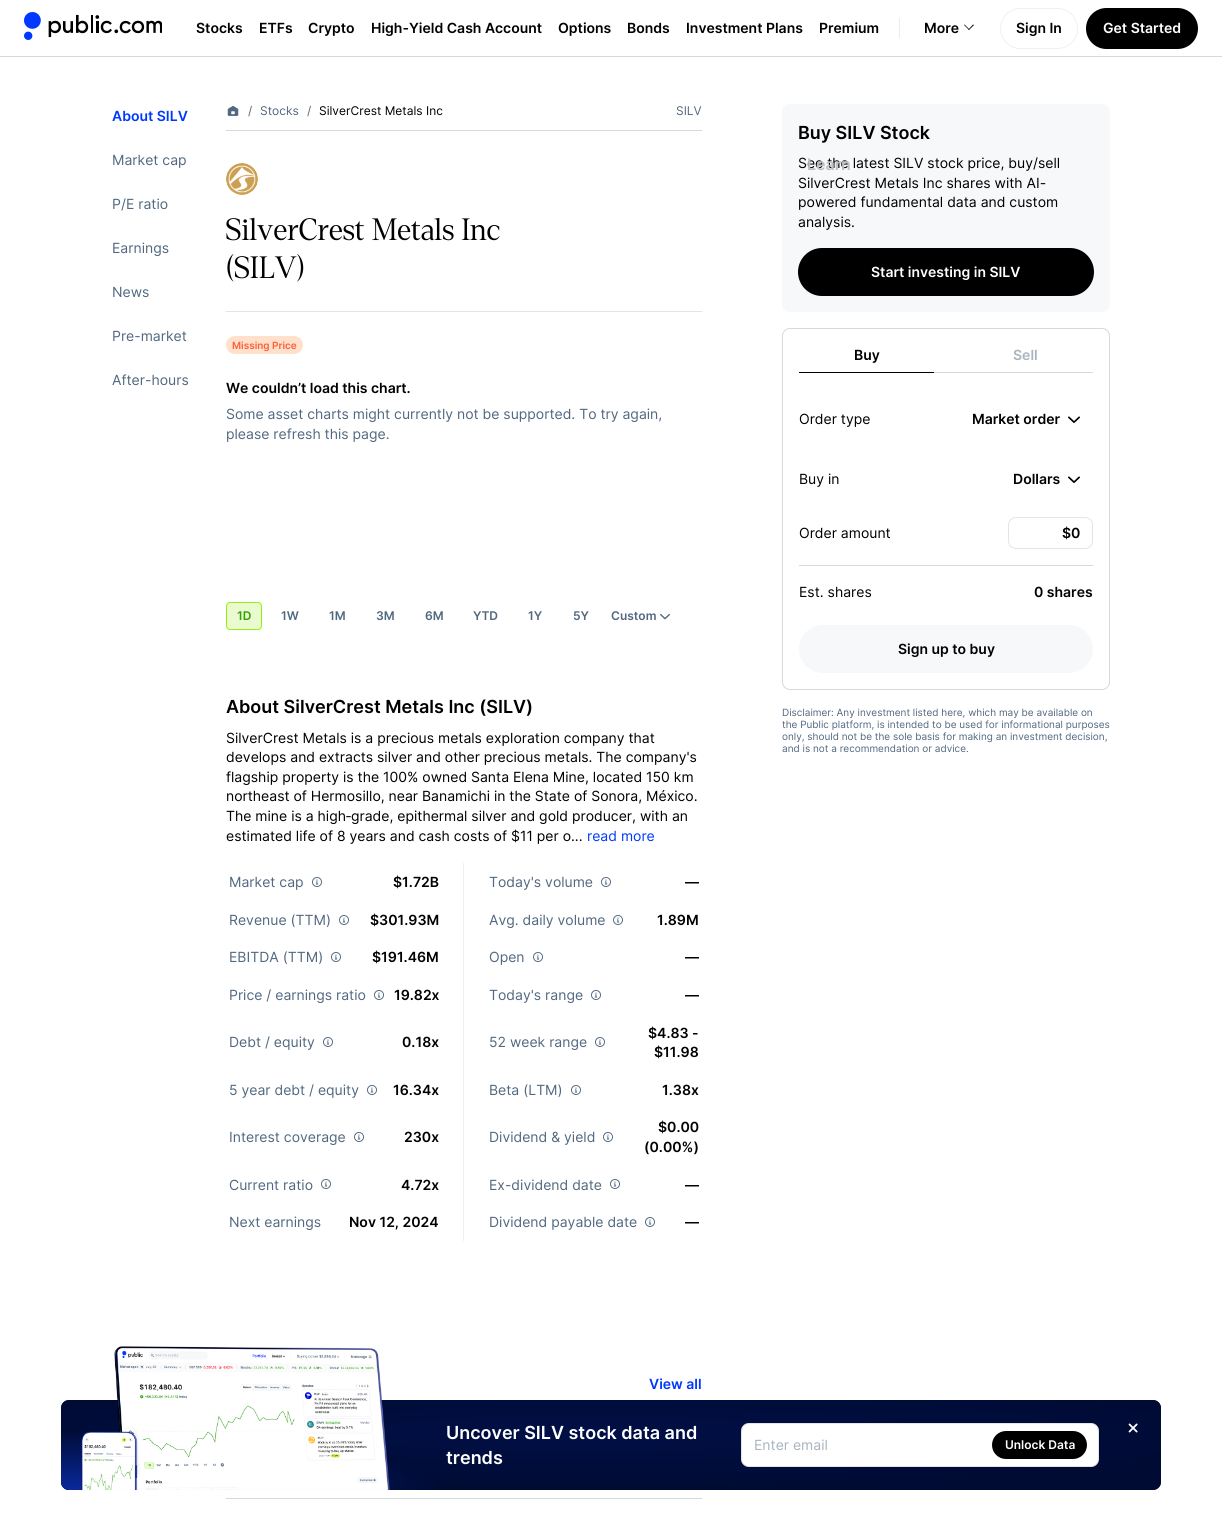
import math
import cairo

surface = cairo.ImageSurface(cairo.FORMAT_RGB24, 1222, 1520)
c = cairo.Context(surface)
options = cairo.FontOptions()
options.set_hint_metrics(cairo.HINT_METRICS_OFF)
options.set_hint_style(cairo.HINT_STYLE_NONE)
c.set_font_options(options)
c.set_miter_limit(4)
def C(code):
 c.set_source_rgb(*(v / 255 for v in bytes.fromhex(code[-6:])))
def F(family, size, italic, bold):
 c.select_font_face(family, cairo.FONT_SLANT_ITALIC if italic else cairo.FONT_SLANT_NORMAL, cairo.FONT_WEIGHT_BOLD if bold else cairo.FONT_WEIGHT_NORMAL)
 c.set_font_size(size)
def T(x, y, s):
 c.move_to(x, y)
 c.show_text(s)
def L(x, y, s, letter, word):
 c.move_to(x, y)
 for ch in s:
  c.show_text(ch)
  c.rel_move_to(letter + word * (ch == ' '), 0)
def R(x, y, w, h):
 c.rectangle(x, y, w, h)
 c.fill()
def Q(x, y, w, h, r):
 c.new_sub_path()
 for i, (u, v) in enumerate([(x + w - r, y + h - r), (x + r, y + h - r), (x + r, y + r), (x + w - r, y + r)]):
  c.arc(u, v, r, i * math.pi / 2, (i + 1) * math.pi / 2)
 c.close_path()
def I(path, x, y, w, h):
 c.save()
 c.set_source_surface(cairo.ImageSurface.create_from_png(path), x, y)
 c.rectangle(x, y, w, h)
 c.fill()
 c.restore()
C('ffffff')
c.paint()
C('d4d9df')
R(0,56,1222,1)
I('1.png',24,12,17,28)
I('2.png',48,14,114,24)
F('Inter SemiBold',14,0,0)
C('000000')
T(196,33,'Stocks')
T(259,33,'ETFs')
T(308,33,'Crypto')
T(371,33,'High-Yield Cash Account')
T(558,33,'Options')
T(627,33,'Bonds')
T(686,33,'Investment Plans')
C('ebebf3')
R(899,18,1,20)
C('000000')
T(924,33,'More')
c.new_path()
c.move_to(973,24.5)
c.line_to(974,25)
c.line_to(969,30)
c.line_to(968.5,29.5)
c.close_path()
c.fill()
c.new_path()
c.move_to(964.5,24.5)
c.line_to(969.5,29.5)
c.line_to(969,30)
c.line_to(964,25)
c.close_path()
c.fill()
C('f6f8f9')
Q(782,104,328,208,8)
c.fill()
F('Inter',14,0,0)
C('000000')
T(798,168,'See the latest SILV stock price, buy/sell')
F('Inter SemiBold',16,0,0)
C('bebfc0')
T(807,170,'Learn')
F('Inter SemiBold',14,0,0)
C('000000')
T(819,33,'Premium')
Q(1000.5,8.5,77,40,20)
C('ebf3ec')
c.set_line_width(1)
c.stroke()
C('000000')
T(1016,33,'Sign In')
Q(1086,8,112,41,20.5)
c.fill()
C('ffffff')
T(1103,33,'Get Started')
C('0038ff')
T(112,121,'About SILV')
F('Inter',14,0,0)
C('516880')
T(112,165,'Market cap')
T(112,209,'P/E ratio')
T(112,253,'Earnings')
T(112,297,'News')
T(112,341,'Pre-market')
T(112,385,'After-hours')
C('d4d9df')
R(226,130,476,1)
I('3.png',227,105,12,11)
F('Inter',12,0,0)
C('516880')
T(248,115,'/')
T(260,115,'Stocks')
T(307,115,'/')
C('000000')
T(319,115,'SilverCrest Metals Inc')
C('516880')
T(676,115,'SILV')
I('4.png',226,163,32,32)
F('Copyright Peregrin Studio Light',30,0,0)
C('000000')
L(226,240,'SilverCrest Metals Inc',.6,0)
L(226,278,'(SILV)',.6,0)
C('e4e4e4')
R(226,311,476,1)
C('ffe0ca')
Q(226,336,77,18,9)
c.fill()
F('Inter SemiBold',10,0,0)
C('ff5e3a')
T(232,349,'Missing Price')
F('Inter SemiBold',14,0,0)
C('000000')
T(226,393,'We couldn’t load this chart.')
F('Inter',14,0,0)
C('516880')
T(226,419,'Some asset charts might currently not be supported. To try again,')
T(226,439,'please refresh this page.')
C('eafbd1')
Q(226.5,602.5,35,27,3.5)
c.fill_preserve()
C('95f001')
c.stroke()
F('Inter SemiBold',12,0,0)
C('31a400')
T(237,620,'1D')
C('516880')
T(281,620,'1W')
T(329,620,'1M')
T(376,620,'3M')
T(425,620,'6M')
T(473,620,'YTD')
T(528,620,'1Y')
T(573,620,'5Y')
T(611,620,'Custom')
I('5.png',660,613,10,7)
F('Inter SemiBold',18,0,0)
C('000000')
T(226,713,'About SilverCrest Metals Inc (SILV)')
F('Inter',14,0,0)
T(226,743,'SilverCrest Metals is a precious metals exploration company that')
T(226,762,'develops and extracts silver and other precious metals. The company\'s')
T(226,782,'flagship property is the 100% owned Santa Elena Mine, located 150 km')
T(226,801,'northeast of Hermosillo, near Banamichi in the State of Sonora, México.')
T(226,821,'The mine is a high‐grade, epithermal silver and gold producer, with an')
T(226,841,'estimated life of 8 years and cash costs of $11 per o...')
C('0038ff')
T(587,841,'read more')
C('516880')
T(229,887,'Market cap')
I('6.png',312,877,10,10)
F('Inter SemiBold',14,0,0)
C('000000')
T(393,887,'$1.72B')
C('eef0f2')
R(463,863,1,378)
F('Inter',14,0,0)
C('516880')
T(489,887,'Today\'s volume')
I('6.png',601,877,10,10)
F('Inter SemiBold',14,0,0)
C('000000')
T(685,887,'—')
F('Inter',14,0,0)
C('516880')
T(229,925,'Revenue (TTM)')
I('6.png',339,915,10,10)
F('Inter SemiBold',14,0,0)
C('000000')
T(370,925,'$301.93M')
F('Inter',14,0,0)
C('516880')
T(489,925,'Avg. daily volume')
I('6.png',613,915,10,10)
F('Inter SemiBold',14,0,0)
C('000000')
T(657,925,'1.89M')
F('Inter',14,0,0)
C('516880')
T(229,962,'EBITDA (TTM)')
I('6.png',331,952,10,10)
F('Inter SemiBold',14,0,0)
C('000000')
T(372,962,'$191.46M')
F('Inter',14,0,0)
C('516880')
T(489,962,'Open')
I('6.png',533,952,10,10)
F('Inter SemiBold',14,0,0)
C('000000')
T(685,962,'—')
F('Inter',14,0,0)
C('516880')
T(229,1000,'Price / earnings ratio')
I('6.png',374,990,10,10)
F('Inter SemiBold',14,0,0)
C('000000')
T(394,1000,'19.82x')
F('Inter',14,0,0)
C('516880')
T(489,1000,'Today\'s range')
I('6.png',591,990,10,10)
F('Inter SemiBold',14,0,0)
C('000000')
T(685,1000,'—')
F('Inter',14,0,0)
C('516880')
T(229,1047,'Debt / equity')
I('6.png',323,1037,10,10)
F('Inter SemiBold',14,0,0)
C('000000')
T(402,1047,'0.18x')
F('Inter',14,0,0)
C('516880')
T(489,1047,'52 week range')
I('6.png',595,1037,10,10)
F('Inter SemiBold',14,0,0)
C('000000')
T(648,1038,'$4.83 -')
T(654,1057,'$11.98')
F('Inter',14,0,0)
C('516880')
T(229,1095,'5 year debt / equity')
I('6.png',367,1085,10,10)
F('Inter SemiBold',14,0,0)
C('000000')
T(393,1095,'16.34x')
F('Inter',14,0,0)
C('516880')
T(489,1095,'Beta (LTM)')
I('6.png',571,1085,10,10)
F('Inter SemiBold',14,0,0)
C('000000')
T(662,1095,'1.38x')
F('Inter',14,0,0)
C('516880')
T(229,1142,'Interest coverage')
I('6.png',354,1132,10,10)
F('Inter SemiBold',14,0,0)
C('000000')
T(404,1142,'230x')
F('Inter',14,0,0)
C('516880')
T(489,1142,'Dividend & yield')
I('6.png',603,1132,10,10)
F('Inter SemiBold',14,0,0)
C('000000')
T(658,1132,'$0.00')
T(644,1152,'(0.00%)')
F('Inter',14,0,0)
C('516880')
T(229,1190,'Current ratio')
I('6.png',321,1179,10,10)
F('Inter SemiBold',14,0,0)
C('000000')
T(401,1190,'4.72x')
F('Inter',14,0,0)
C('516880')
T(489,1190,'Ex-dividend date')
I('6.png',610,1179,10,10)
F('Inter SemiBold',14,0,0)
C('000000')
T(685,1190,'—')
F('Inter',14,0,0)
C('516880')
T(229,1227,'Next earnings')
F('Inter SemiBold',14,0,0)
C('000000')
T(349,1227,'Nov 12, 2024')
F('Inter',14,0,0)
C('516880')
T(489,1227,'Dividend payable date')
I('6.png',645,1217,10,10)
F('Inter SemiBold',14,0,0)
C('000000')
T(685,1227,'—')
C('0038ff')
T(649,1389,'View all')
C('d4d9df')
R(226,1498,476,1)
F('Inter SemiBold',18,0,0)
C('000000')
T(798,139,'Buy SILV Stock')
F('Inter',14,0,0)
T(798,188,'SilverCrest Metals Inc shares with AI-')
T(798,207,'powered fundamental data and custom')
T(798,227,'analysis.')
Q(798,248,296,48,24)
c.fill()
F('Inter SemiBold',14,0,0)
C('ffffff')
T(871,277,'Start investing in SILV')
Q(782.5,328.5,327,361,7.5)
C('d4d9df')
c.stroke()
C('000000')
R(799,372,135,1)
T(854,360,'Buy')
C('a8b4bf')
T(1013,360,'Sell')
C('d4d9df')
R(934,372,159,1)
F('Inter',14,0,0)
C('000000')
T(799,424,'Order type')
F('Inter SemiBold',14,0,0)
T(972,424,'Market order')
I('7.png',1068,416,12,7)
F('Inter',14,0,0)
T(799,484,'Buy in')
F('Inter SemiBold',14,0,0)
T(1013,484,'Dollars')
I('7.png',1068,476,12,7)
C('d4d9df')
R(799,565,294,1)
F('Inter',14,0,0)
C('000000')
T(799,538,'Order amount')
Q(1008.5,517.5,84,31,7.5)
C('e4e4e4')
c.stroke()
F('Inter SemiBold',14,0,0)
C('000000')
T(1062,538,'$0')
F('Inter',14,0,0)
T(799,597,'Est. shares')
F('Inter SemiBold',14,0,0)
T(1034,597,'0 shares')
C('f6f8f9')
Q(799,625,294,48,24)
c.fill()
C('000000')
T(898,654,'Sign up to buy')
F('Inter',10,0,0)
C('516880')
T(782,716,'Disclaimer: Any investment listed here, which may be available on')
T(782,728,'the Public platform, is intended to be used for informational purposes')
T(782,740,'only, should not be the sole basis for making an investment decision,')
T(782,752,'and is not a recommendation or advice.')
gradient = cairo.RadialGradient(0,0,0,0,0,1)
gradient.set_matrix(cairo.Matrix(1 / 710, 0, 0, 1 / 56, -1 * 583 / 710, -1 * 1434 / 56))
gradient.add_color_stop_rgba(0,0,0.078,0.365,1)
gradient.add_color_stop_rgba(1,0,0,0,1)
c.set_source(gradient)
Q(61,1400,1100,90,8)
c.fill()
c.set_source_rgba(0,0.055,0.251,0.8)
Q(61,1400,1100,90,8)
c.fill()
gradient = cairo.RadialGradient(0,0,0,0,0,1)
gradient.set_matrix(cairo.Matrix(1 / 368, 0, 0, 1 / 58, -1 * 73 / 368, -1 * 1490 / 58))
gradient.add_color_stop_rgba(0,0.035,0.161,0.616,1)
gradient.add_color_stop_rgba(1,0.035,0.161,0.616,0)
c.set_source(gradient)
Q(61,1400,1100,90,8)
c.fill()
I('8.png',81,1346,309,144)
F('Inter SemiBold',18,0,0)
C('ffffff')
T(446,1439,'Uncover SILV stock data and')
T(446,1464,'trends')
Q(741,1423,358,44,8)
c.fill()
Q(741.5,1423.5,357,43,7.5)
c.set_source_rgba(0.471,0.471,0.471,0.2)
c.stroke()
F('Inter',14,0,0)
C('a8b4bf')
T(754,1450,'Enter email')
C('000000')
Q(992,1431,95,28,14)
c.fill()
F('Inter SemiBold',12,0,0)
C('ffffff')
T(1005,1449,'Unlock Data')
I('9.png',1128,1423,10,10)
surface.write_to_png('o.png')
